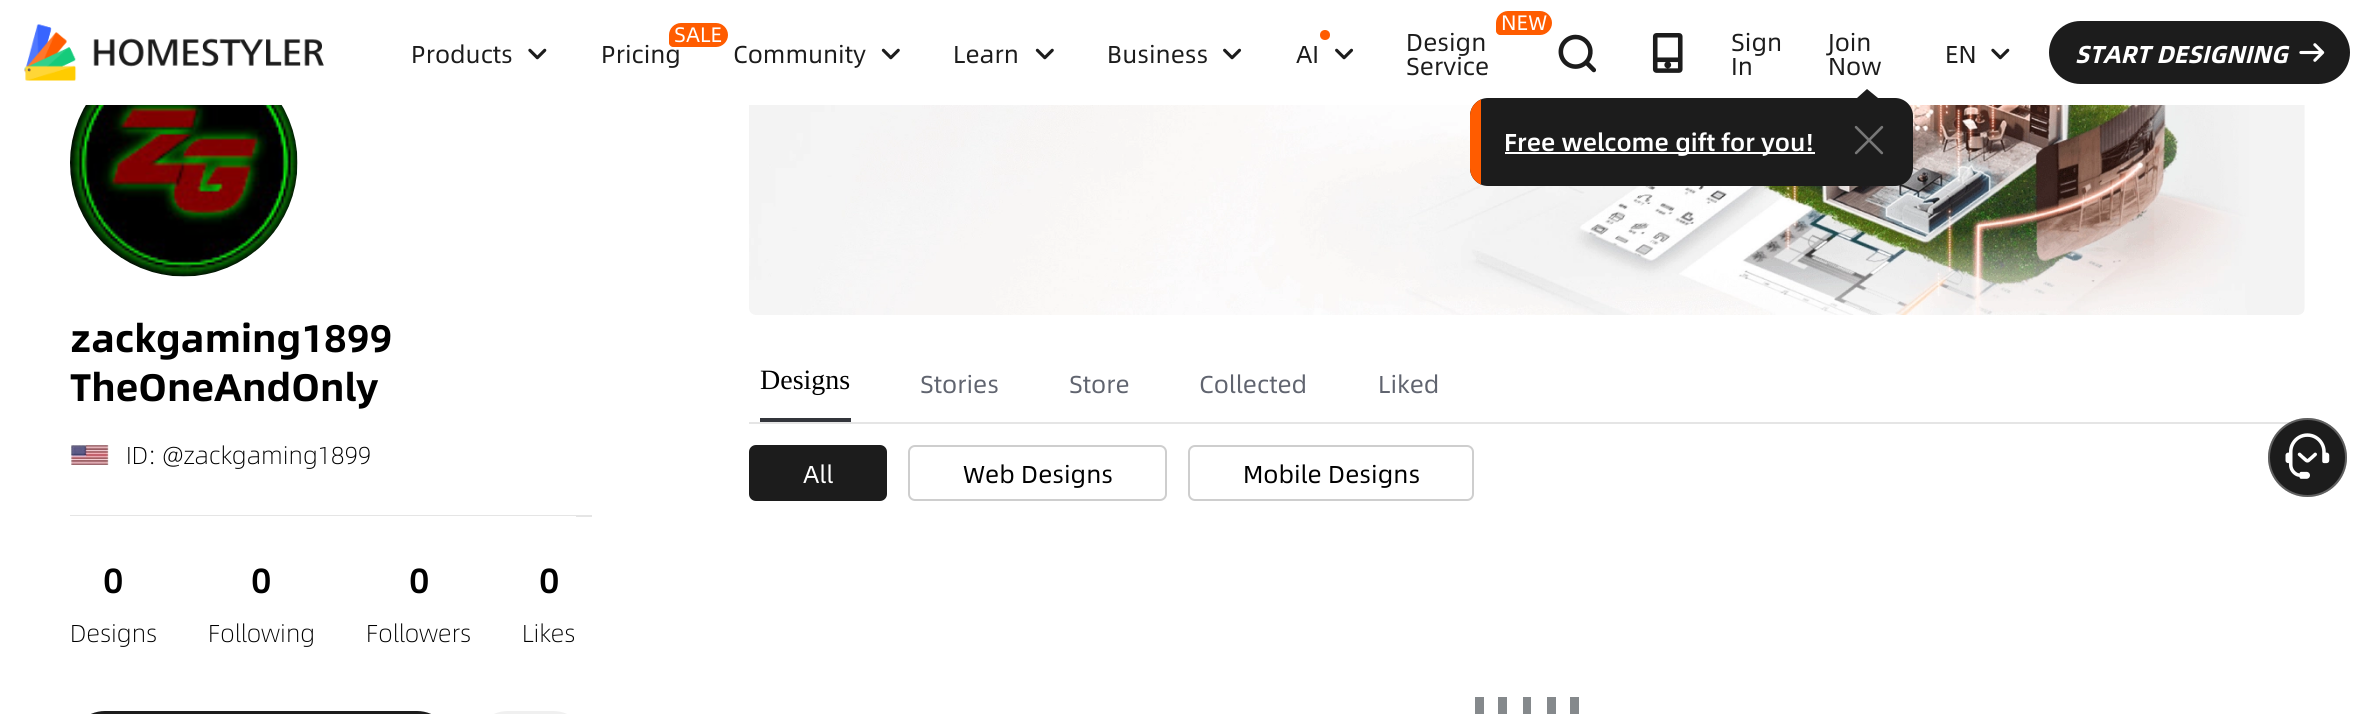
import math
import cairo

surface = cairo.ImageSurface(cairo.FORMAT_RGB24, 2374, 714)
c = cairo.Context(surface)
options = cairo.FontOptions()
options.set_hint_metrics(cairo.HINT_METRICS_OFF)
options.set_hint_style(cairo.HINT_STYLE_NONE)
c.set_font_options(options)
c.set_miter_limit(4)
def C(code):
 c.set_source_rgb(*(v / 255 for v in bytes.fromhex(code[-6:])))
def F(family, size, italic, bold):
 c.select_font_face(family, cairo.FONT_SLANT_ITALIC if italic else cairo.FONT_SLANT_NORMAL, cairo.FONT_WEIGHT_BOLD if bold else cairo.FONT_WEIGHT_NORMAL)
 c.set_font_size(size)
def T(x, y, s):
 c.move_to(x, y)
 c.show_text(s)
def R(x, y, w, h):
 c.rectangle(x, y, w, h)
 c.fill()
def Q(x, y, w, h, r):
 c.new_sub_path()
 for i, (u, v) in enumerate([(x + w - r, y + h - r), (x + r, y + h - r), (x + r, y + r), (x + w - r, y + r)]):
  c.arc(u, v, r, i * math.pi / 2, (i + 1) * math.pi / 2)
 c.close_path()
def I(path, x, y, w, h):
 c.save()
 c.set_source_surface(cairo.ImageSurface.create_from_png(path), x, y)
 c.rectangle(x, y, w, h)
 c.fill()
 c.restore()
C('ffffff')
c.paint()
I('1.png',24,24,300,57)
F('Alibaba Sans',24.5,0,0)
C('1c1c1c')
T(411,63,'Products')
I('2.png',528,48,19,12)
T(601,63,'Pricing')
C('ff5c00')
c.new_path()
c.move_to(681,23)
c.line_to(716,23)
c.curve_to(722.5,23,728,28.5,728,35)
c.curve_to(728,41.5,722.5,47,716,47)
c.line_to(673,47)
c.curve_to(671,47,669,45,669,43)
c.line_to(669,35)
c.curve_to(669,28.5,674.5,23,681,23)
c.close_path()
c.fill()
F('Alibaba Sans',21,0,0)
C('ffffff')
T(674,42,'SALE')
F('Alibaba Sans',24.5,0,0)
C('1c1c1c')
T(733,63,'Community')
I('3.png',881,48,19,12)
T(953,63,'Learn')
I('3.png',1035,48,19,12)
T(1107,63,'Business')
I('4.png',1223,48,19,12)
C('ff5c00')
c.arc(1325,35,5,0,2 * math.pi)
c.fill()
C('1c1c1c')
T(1296,63,'AI')
I('4.png',1335,48,19,12)
C('ff5c00')
c.new_path()
c.move_to(1508,11)
c.line_to(1540,11)
c.curve_to(1546.5,11,1552,16.5,1552,23)
c.curve_to(1552,29.5,1546.5,35,1540,35)
c.line_to(1500,35)
c.curve_to(1498,35,1496,33,1496,31)
c.line_to(1496,23)
c.curve_to(1496,16.5,1501.5,11,1508,11)
c.close_path()
c.fill()
F('Alibaba Sans',21,0,0)
C('ffffff')
T(1501,30,'NEW')
F('Alibaba Sans',24.5,0,0)
C('1c1c1c')
T(1406,51,'Design')
T(1406,75,'Service')
T(1828,51,'Join')
T(1828,75,'Now')
c.new_path()
c.move_to(1878,98)
c.line_to(1857,98)
c.line_to(1867,89)
c.close_path()
c.fill()
I('11.png',749,105,1556,210)
Q(1470,98,443,88,18)
c.fill()
c.save()
Q(1470,98,443,88,18)
c.clip()
C('ff5c00')
R(1470,99,11,86)
c.restore()
C('ffffff')
R(1505,152,310,2)
F('Alibaba Sans Medium',24.5,0,0)
T(1504,151,'Free welcome gift for you!')
I('5.png',1854,125,30,30)
I('6.png',1558,34,38,39)
I('7.png',1652,33,31,40)
F('Alibaba Sans',24.5,0,0)
C('1c1c1c')
T(1731,51,'Sign')
T(1731,75,'In')
T(1945,63,'EN')
I('2.png',1991,48,19,12)
Q(2049,21,301,63,31.5)
c.fill()
F('Alibaba Sans',24.5,1,1)
C('ffffff')
T(2075,63,'START DESIGNING')
I('8.png',2299,43,26,19)
I('9.png',70,105,228,172)
F('Alibaba Sans',38.5,0,1)
C('000000')
T(70,352,'zackgaming1899')
T(70,401,'TheOneAndOnly')
I('10.png',71,445,38,20)
F('Alibaba Sans Light',24.5,0,0)
T(126,464,'ID: @zackgaming1899')
C('e5e5e5')
R(70,515,522,2)
C('ffffff')
R(70,516,506,1)
F('Alibaba Sans Medium',35,0,0)
C('000000')
T(103,593,'0')
F('Alibaba Sans Light',24.5,0,0)
T(70,642,'Designs')
F('Alibaba Sans Medium',35,0,0)
T(251,593,'0')
F('Alibaba Sans Light',24.5,0,0)
T(208,642,'Following')
F('Alibaba Sans Medium',35,0,0)
T(409,593,'0')
F('Alibaba Sans Light',24.5,0,0)
T(366,642,'Followers')
F('Alibaba Sans Medium',35,0,0)
T(539,593,'0')
F('Alibaba Sans Light',24.5,0,0)
T(522,642,'Likes')
C('1c1c1c')
Q(70,711,382,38,35)
c.fill()
C('f0f0f0')
Q(473,711,115,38,35)
c.fill()
C('e5e5e5')
R(749,422,1542,2)
C('33353b')
R(760,418,91,4)
F('Liberation Serif',28,0,0)
C('000000')
T(760,389,'Designs')
F('Alibaba Sans',24.5,0,0)
C('60646f')
T(920,393,'Stories')
T(1069,393,'Store')
T(1199,393,'Collected')
T(1378,393,'Liked')
C('1c1c1c')
Q(750,446,136,54,6)
c.fill_preserve()
c.stroke()
C('ffffff')
T(803,483,'All')
Q(909,446,257,54,6)
C('cecece')
c.stroke()
C('000000')
T(963,483,'Web Designs')
Q(1189,446,284,54,6)
C('cecece')
c.stroke()
C('000000')
T(1243,483,'Mobile Designs')
C('85898c')
R(1475,697,9,17)
R(1498,697,9,17)
R(1523,697,8,17)
R(1547,697,9,17)
R(1570,697,9,17)
C('1c1c1c')
c.new_path()
c.arc(2307.5,457.5,39.5,0,2 * math.pi)
c.fill()
c.arc(2307.5,457.5,38.5,0,2 * math.pi)
c.set_source_rgba(1,1,1,0.3)
c.stroke()
I('12.png',2285,433,45,46)
surface.write_to_png('o.png')
